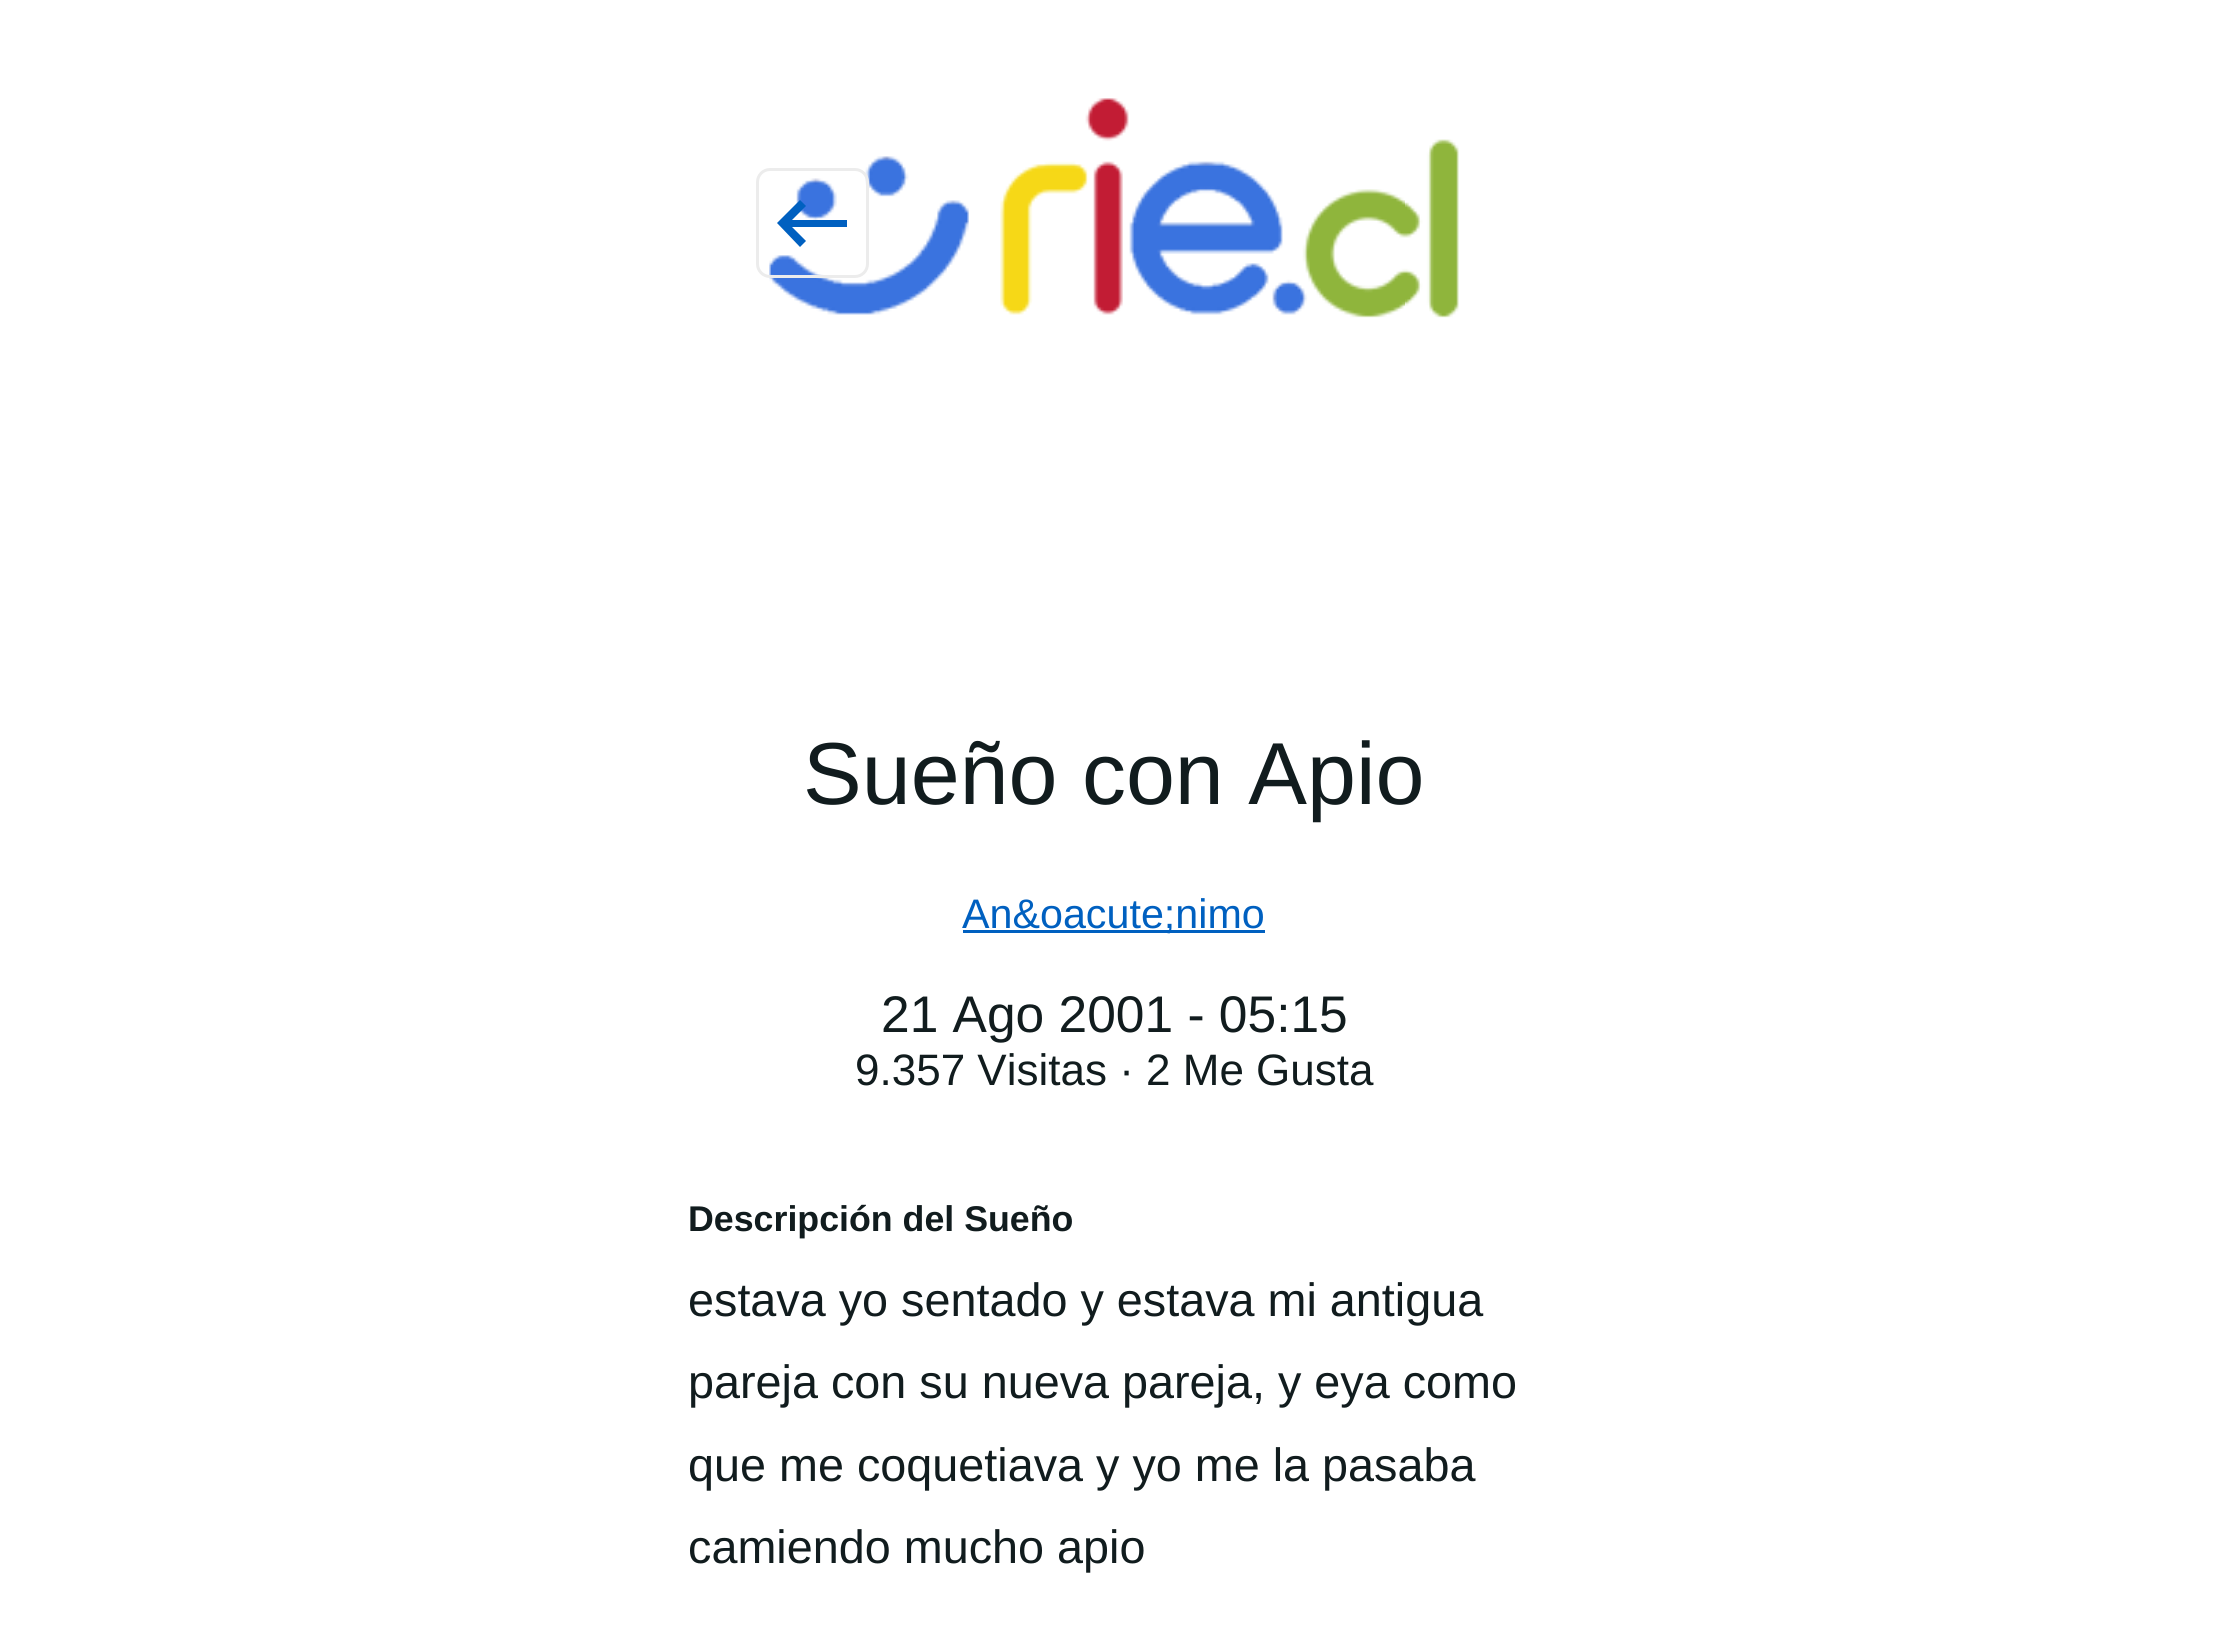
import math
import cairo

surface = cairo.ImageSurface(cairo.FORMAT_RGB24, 2225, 1633)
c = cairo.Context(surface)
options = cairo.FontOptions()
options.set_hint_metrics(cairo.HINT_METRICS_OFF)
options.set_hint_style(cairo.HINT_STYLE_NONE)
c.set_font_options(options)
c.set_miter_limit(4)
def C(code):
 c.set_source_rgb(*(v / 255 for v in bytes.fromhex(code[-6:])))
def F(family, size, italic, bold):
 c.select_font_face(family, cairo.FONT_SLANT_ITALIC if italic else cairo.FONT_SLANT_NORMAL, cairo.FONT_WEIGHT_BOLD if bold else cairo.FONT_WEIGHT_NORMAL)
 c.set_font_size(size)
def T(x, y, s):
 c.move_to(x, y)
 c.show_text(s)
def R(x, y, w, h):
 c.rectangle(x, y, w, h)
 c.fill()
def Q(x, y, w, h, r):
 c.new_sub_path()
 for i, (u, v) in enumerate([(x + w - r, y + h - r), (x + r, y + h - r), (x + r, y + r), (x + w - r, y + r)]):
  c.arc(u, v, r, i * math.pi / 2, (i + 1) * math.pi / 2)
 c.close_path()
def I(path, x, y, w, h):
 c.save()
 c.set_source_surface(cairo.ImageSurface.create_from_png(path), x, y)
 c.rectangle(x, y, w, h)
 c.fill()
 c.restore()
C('ffffff')
c.paint()
I('1.png',769,98,690,220)
Q(757.5,169.5,110,107,12.5)
C('ececec')
c.set_line_width(3)
c.stroke()
C('0060c0')
c.new_path()
c.move_to(847,220)
c.line_to(792,220)
c.line_to(806,206)
c.line_to(800,200)
c.line_to(777,223)
c.line_to(800,247)
c.line_to(806,241)
c.line_to(792,227)
c.line_to(847,227)
c.close_path()
c.fill()
F('Liberation Sans',88,0,0)
C('111c1e')
T(803,804,'Sueño con Apio')
C('0060c0')
R(963,930,302,3)
F('Liberation Sans',41.25,0,0)
T(962,928,'An&oacute;nimo')
F('Liberation Sans',51.5,0,0)
C('111c1e')
T(881,1032,'21 Ago 2001 - 05:15')
F('Liberation Sans',44,0,0)
T(855,1085,'9.357 Visitas · 2 Me Gusta')
F('Liberation Sans',35.75,0,1)
T(688,1231,'Descripción del Sueño')
F('Liberation Sans',46.75,0,0)
T(688,1316,'estava yo sentado y estava mi antigua')
T(688,1398,'pareja con su nueva pareja, y eya como')
T(688,1481,'que me coquetiava y yo me la pasaba')
T(688,1563,'camiendo mucho apio')
surface.write_to_png('o.png')
